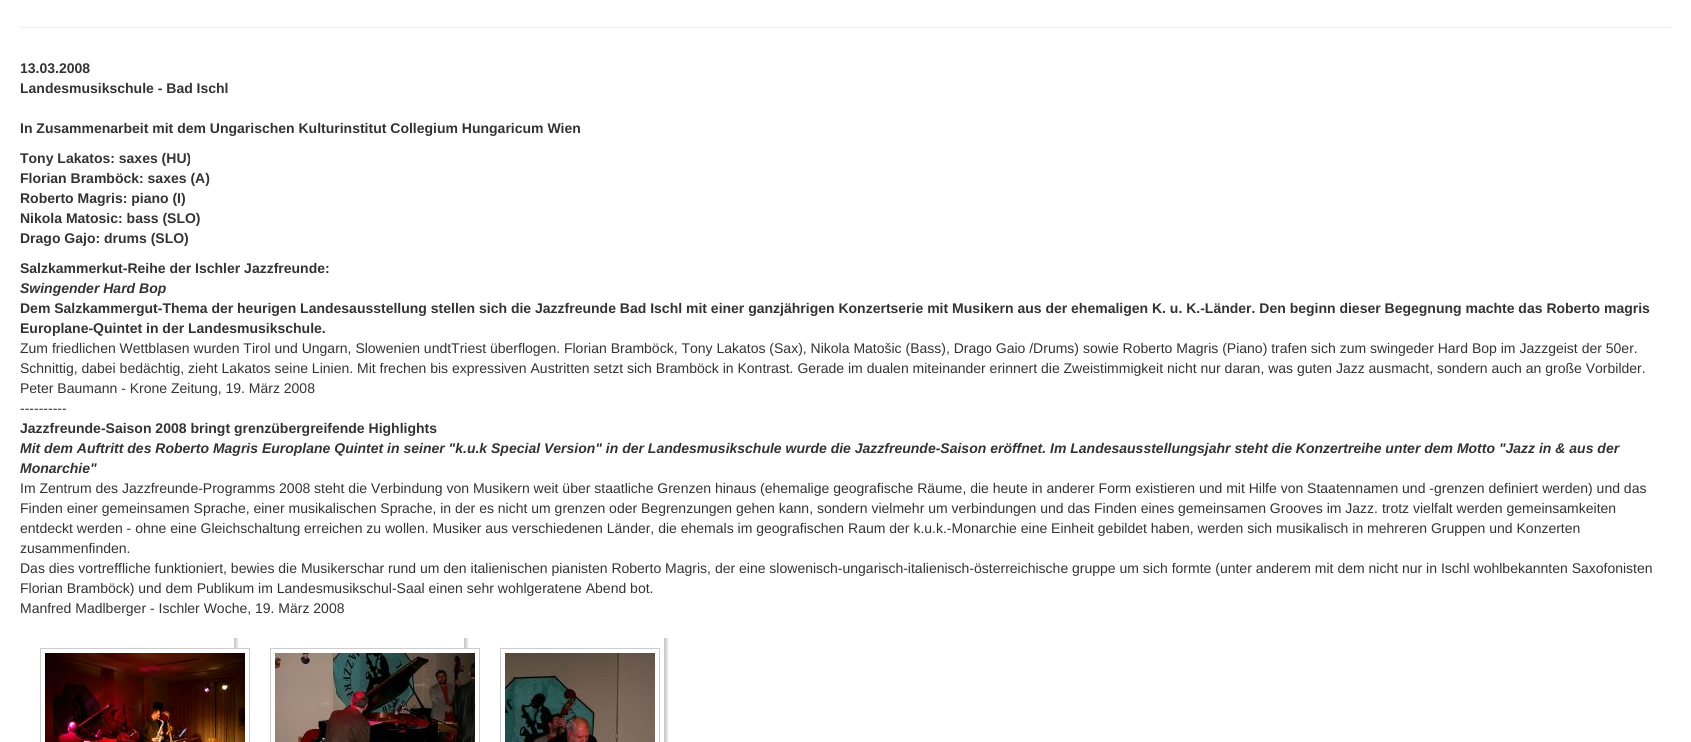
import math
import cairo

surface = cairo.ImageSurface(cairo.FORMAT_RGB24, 1691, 742)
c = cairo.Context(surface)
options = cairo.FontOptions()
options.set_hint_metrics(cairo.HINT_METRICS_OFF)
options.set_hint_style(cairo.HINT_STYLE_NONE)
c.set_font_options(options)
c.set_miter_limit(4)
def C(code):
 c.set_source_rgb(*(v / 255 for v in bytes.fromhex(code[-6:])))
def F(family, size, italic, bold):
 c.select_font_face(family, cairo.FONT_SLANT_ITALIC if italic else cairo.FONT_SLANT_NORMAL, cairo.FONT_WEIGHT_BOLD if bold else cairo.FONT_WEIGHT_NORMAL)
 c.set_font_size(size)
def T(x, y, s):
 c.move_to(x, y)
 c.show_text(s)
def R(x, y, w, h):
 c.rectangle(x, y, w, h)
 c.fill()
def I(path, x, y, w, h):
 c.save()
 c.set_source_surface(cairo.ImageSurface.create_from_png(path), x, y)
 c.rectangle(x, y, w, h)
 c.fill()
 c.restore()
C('ffffff')
c.paint()
C('eeeeee')
R(20,27,1651,1)
F('Liberation Sans',14,0,1)
C('333333')
T(20,73,'13.03.2008')
T(20,93,'Landesmusikschule - Bad Ischl')
T(20,133,'In Zusammenarbeit mit dem Ungarischen Kulturinstitut Collegium Hungaricum Wien')
T(20,163,'Tony Lakatos: saxes (HU)')
T(20,183,'Florian Bramböck: saxes (A)')
T(20,203,'Roberto Magris: piano (I)')
T(20,223,'Nikola Matosic: bass (SLO)')
T(20,243,'Drago Gajo: drums (SLO)')
T(20,273,'Salzkammerkut-Reihe der Ischler Jazzfreunde:')
F('Liberation Sans',14,1,1)
T(20,293,'Swingender Hard Bop')
F('Liberation Sans',14,0,1)
T(20,313,'Dem Salzkammergut-Thema der heurigen Landesausstellung stellen sich die Jazzfreunde Bad Ischl mit einer ganzjährigen Konzertserie mit Musikern aus der ehemaligen K. u. K.-Länder. Den beginn dieser Begegnung machte das Roberto magris')
T(20,333,'Europlane-Quintet in der Landesmusikschule.')
F('Liberation Sans',14,0,0)
T(20,353,'Zum friedlichen Wettblasen wurden Tirol und Ungarn, Slowenien undtTriest überflogen. Florian Bramböck, Tony Lakatos (Sax), Nikola Matošic (Bass), Drago Gaio /Drums) sowie Roberto Magris (Piano) trafen sich zum swingeder Hard Bop im Jazzgeist der 50er.')
T(20,373,'Schnittig, dabei bedächtig, zieht Lakatos seine Linien. Mit frechen bis expressiven Austritten setzt sich Bramböck in Kontrast. Gerade im dualen miteinander erinnert die Zweistimmigkeit nicht nur daran, was guten Jazz ausmacht, sondern auch an große Vorbilder.')
T(20,393,'Peter Baumann - Krone Zeitung, 19. März 2008')
T(20,413,'----------')
F('Liberation Sans',14,0,1)
T(20,433,'Jazzfreunde-Saison 2008 bringt grenzübergreifende Highlights')
F('Liberation Sans',14,1,1)
T(20,453,'Mit dem Auftritt des Roberto Magris Europlane Quintet in seiner "k.u.k Special Version" in der Landesmusikschule wurde die Jazzfreunde-Saison eröffnet. Im Landesausstellungsjahr steht die Konzertreihe unter dem Motto "Jazz in & aus der')
T(20,473,'Monarchie"')
F('Liberation Sans',14,0,0)
T(20,493,'Im Zentrum des Jazzfreunde-Programms 2008 steht die Verbindung von Musikern weit über staatliche Grenzen hinaus (ehemalige geografische Räume, die heute in anderer Form existieren und mit Hilfe von Staatennamen und -grenzen definiert werden) und das')
T(20,513,'Finden einer gemeinsamen Sprache, einer musikalischen Sprache, in der es nicht um grenzen oder Begrenzungen gehen kann, sondern vielmehr um verbindungen und das Finden eines gemeinsamen Grooves im Jazz. trotz vielfalt werden gemeinsamkeiten')
T(20,533,'entdeckt werden - ohne eine Gleichschaltung erreichen zu wollen. Musiker aus verschiedenen Länder, die ehemals im geografischen Raum der k.u.k.-Monarchie eine Einheit gebildet haben, werden sich musikalisch in mehreren Gruppen und Konzerten')
T(20,553,'zusammenfinden.')
T(20,573,'Das dies vortreffliche funktioniert, bewies die Musikerschar rund um den italienischen pianisten Roberto Magris, der eine slowenisch-ungarisch-italienisch-österreichische gruppe um sich formte (unter anderem mit dem nicht nur in Ischl wohlbekannten Saxofonisten')
T(20,593,'Florian Bramböck) und dem Publikum im Landesmusikschul-Saal einen sehr wohlgeratene Abend bot.')
T(20,613,'Manfred Madlberger - Ischler Woche, 19. März 2008')
I('1.png',234,638,5,10)
c.rectangle(40.5,648.5,209,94)
C('cccccc')
c.set_line_width(1)
c.stroke()
I('2.png',45,653,200,89)
I('1.png',464,638,5,10)
c.rectangle(270.5,648.5,209,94)
c.stroke()
I('3.png',275,653,200,89)
I('4.png',664,638,5,104)
c.rectangle(500.5,648.5,159,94)
c.stroke()
I('5.png',505,653,150,89)
surface.write_to_png('o.png')
